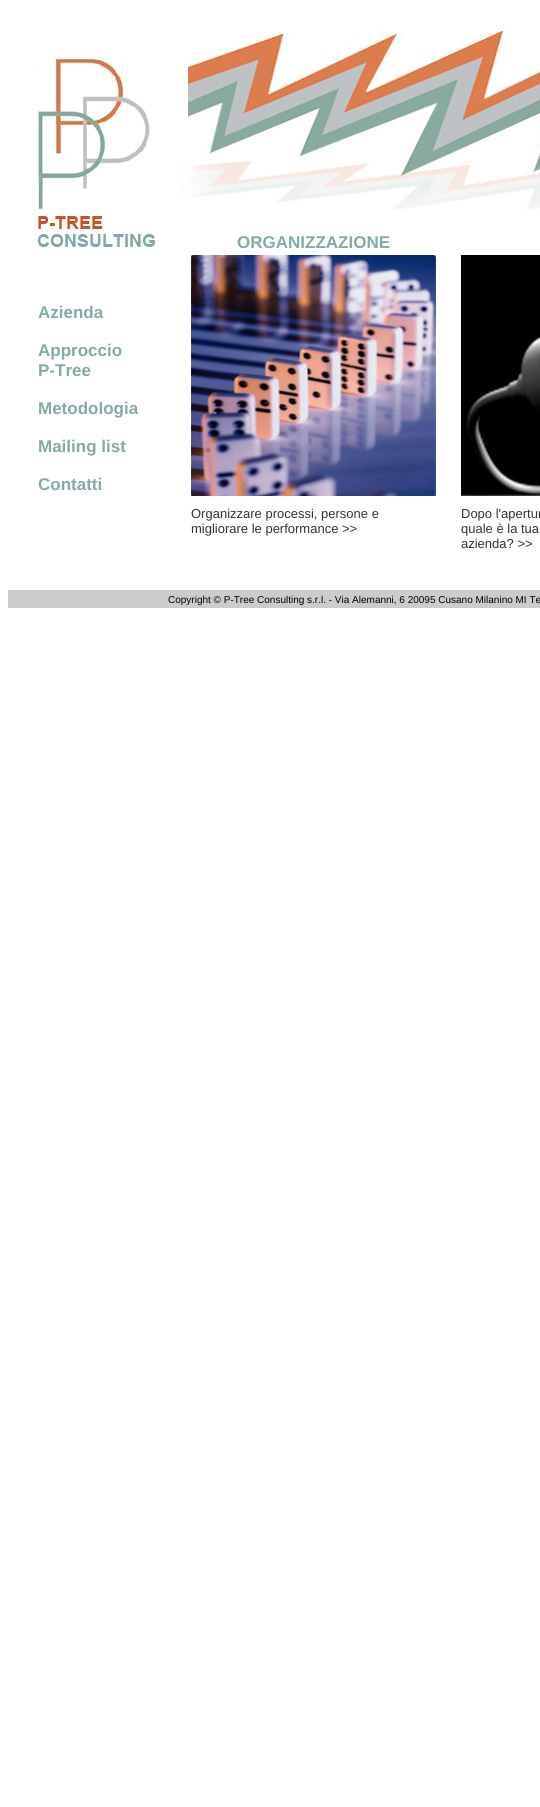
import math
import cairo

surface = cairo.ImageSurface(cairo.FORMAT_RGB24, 540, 1807)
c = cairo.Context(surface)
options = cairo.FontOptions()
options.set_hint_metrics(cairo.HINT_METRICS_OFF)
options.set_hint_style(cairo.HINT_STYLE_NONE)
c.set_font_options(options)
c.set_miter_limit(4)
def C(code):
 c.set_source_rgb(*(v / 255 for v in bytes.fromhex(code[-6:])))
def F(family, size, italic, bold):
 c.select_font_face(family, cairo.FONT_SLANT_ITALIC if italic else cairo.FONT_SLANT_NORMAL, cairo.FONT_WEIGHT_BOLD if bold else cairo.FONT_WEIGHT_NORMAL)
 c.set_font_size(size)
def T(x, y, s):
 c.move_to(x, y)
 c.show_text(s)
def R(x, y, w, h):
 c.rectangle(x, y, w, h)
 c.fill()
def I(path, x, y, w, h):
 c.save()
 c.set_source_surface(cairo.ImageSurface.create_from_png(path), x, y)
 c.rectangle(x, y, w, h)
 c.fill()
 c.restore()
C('ffffff')
c.paint()
I('1.png',32,56,153,192)
F('Liberation Sans',17,0,1)
C('85a9a7')
T(38,318,'Azienda')
T(38,356,'Approccio')
T(38,376,'P-Tree')
T(38,414,'Metodologia')
T(38,452,'Mailing list')
T(38,490,'Contatti')
I('2.png',187,24,353,187)
T(237,248,'ORGANIZZAZIONE')
I('3.png',191,255,245,241)
F('Liberation Sans',13,0,0)
C('333333')
T(191,518,'Organizzare processi, persone e')
T(191,533,'migliorare le performance >>')
I('4.png',461,255,79,241)
T(461,518,'Dopo l\'apertur')
T(461,533,'quale è la tua')
T(461,548,'azienda? >>')
C('cccccc')
R(8,590,532,18)
F('Liberation Sans',10,0,0)
C('000000')
T(168,603,'Copyright © P-Tree Consulting s.r.l. - Via Alemanni, 6 20095 Cusano Milanino MI Te')
surface.write_to_png('o.png')
